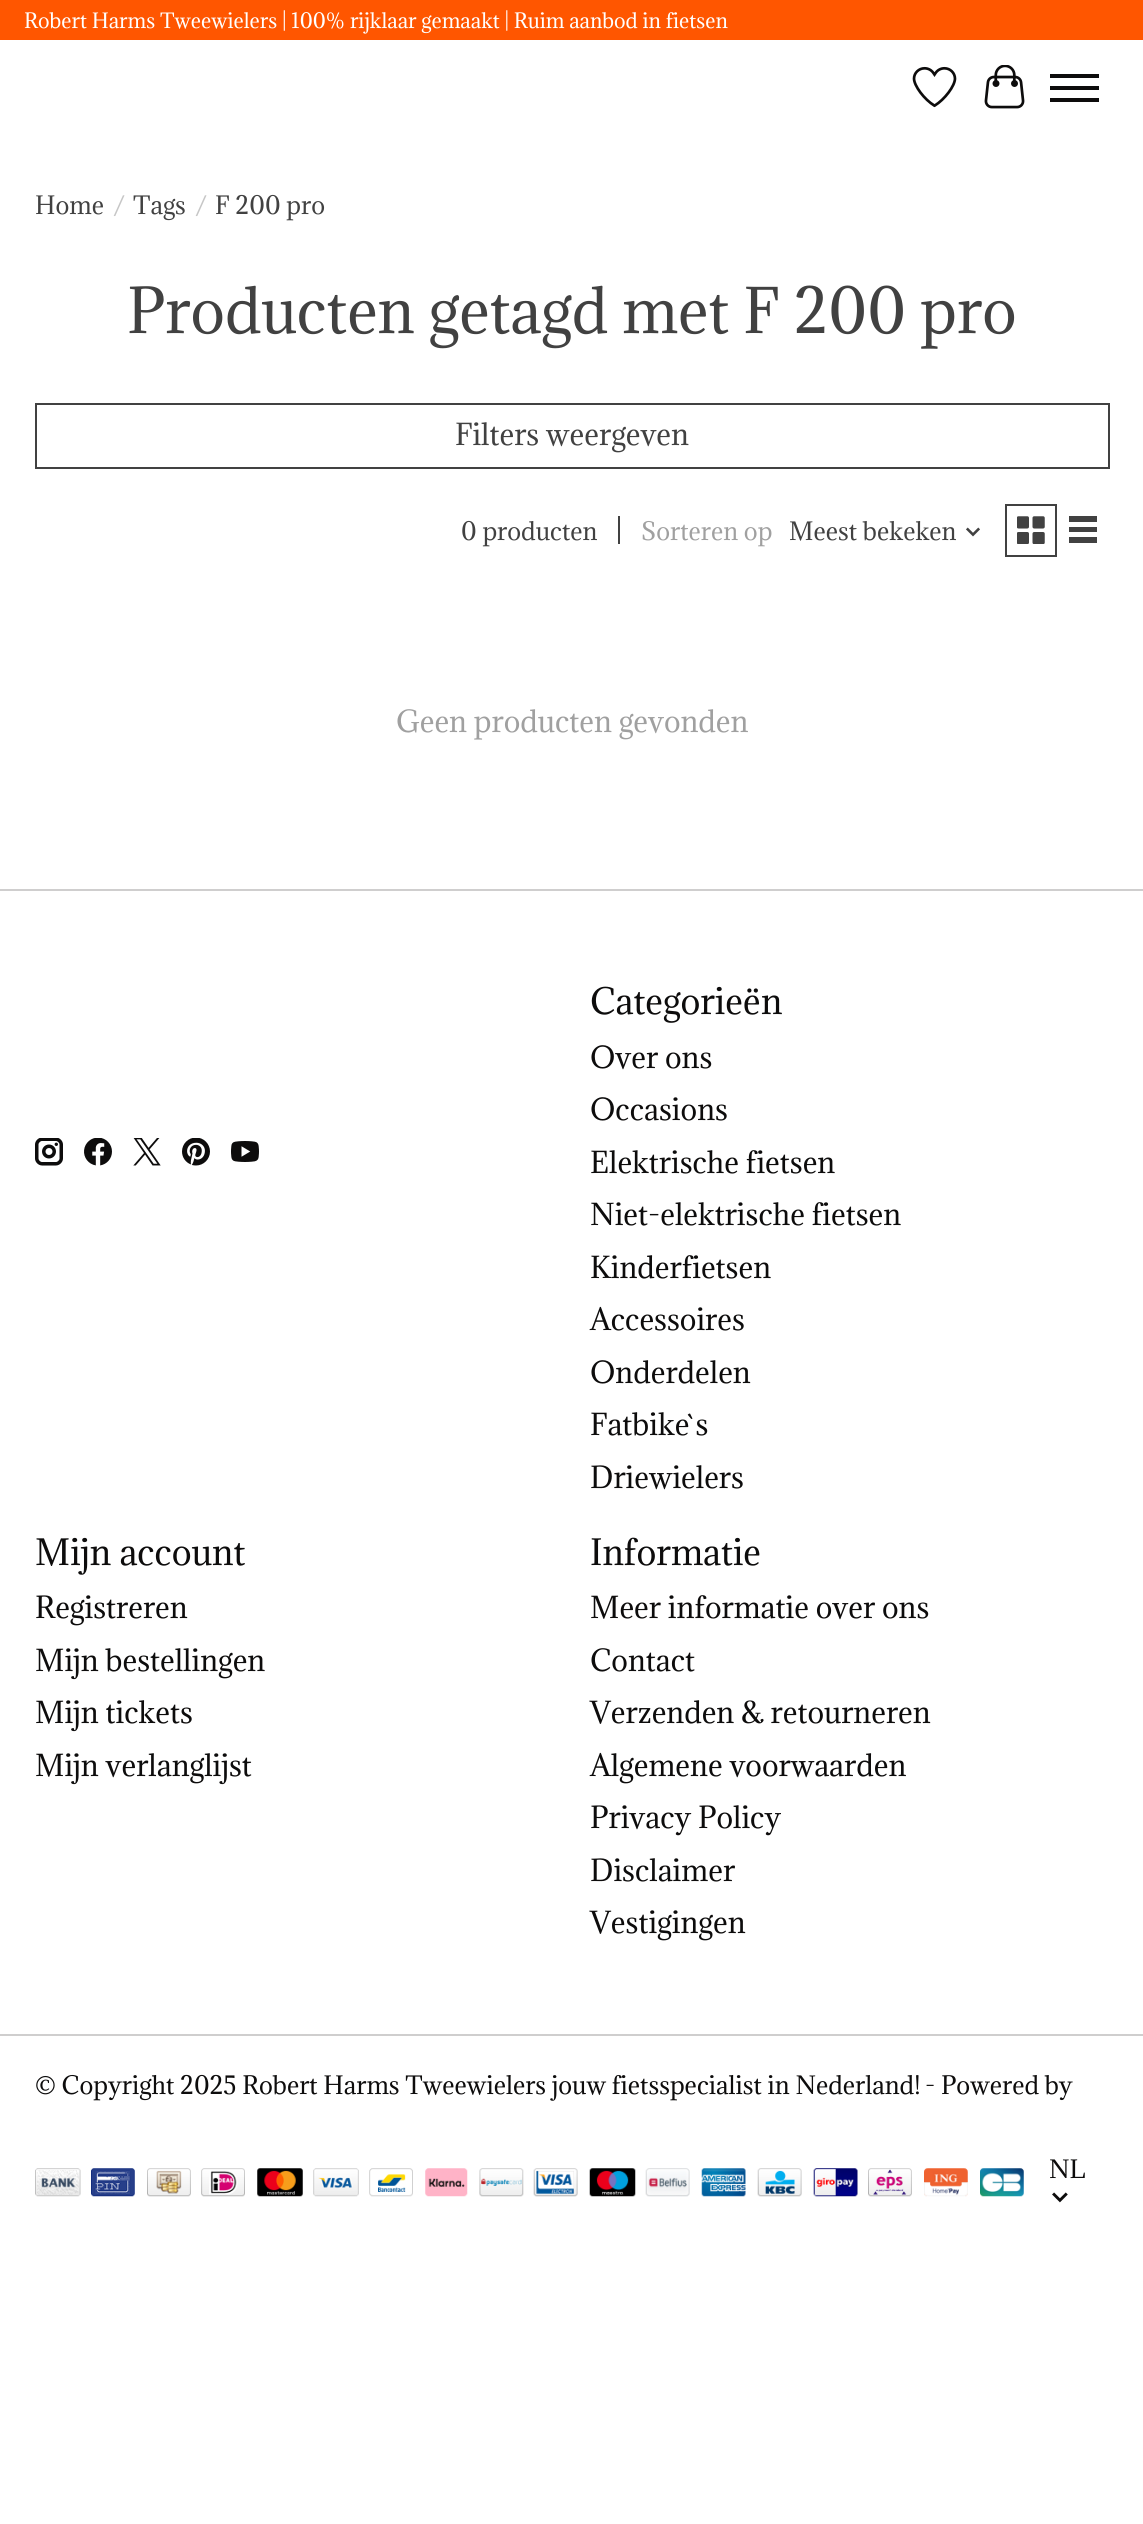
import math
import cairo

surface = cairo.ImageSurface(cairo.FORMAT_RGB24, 1143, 2524)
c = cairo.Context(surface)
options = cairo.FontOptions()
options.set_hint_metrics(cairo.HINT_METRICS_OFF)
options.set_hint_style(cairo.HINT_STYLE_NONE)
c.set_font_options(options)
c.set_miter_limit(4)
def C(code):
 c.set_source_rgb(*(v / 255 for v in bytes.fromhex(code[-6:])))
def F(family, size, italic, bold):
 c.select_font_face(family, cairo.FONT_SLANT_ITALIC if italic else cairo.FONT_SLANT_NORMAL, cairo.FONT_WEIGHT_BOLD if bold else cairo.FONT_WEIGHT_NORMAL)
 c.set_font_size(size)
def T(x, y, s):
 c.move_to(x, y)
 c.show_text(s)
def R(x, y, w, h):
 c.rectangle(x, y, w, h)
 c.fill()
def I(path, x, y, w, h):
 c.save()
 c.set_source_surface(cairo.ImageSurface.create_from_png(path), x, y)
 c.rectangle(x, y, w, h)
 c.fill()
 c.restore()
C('ffffff')
c.paint()
C('ff5600')
R(0,0,1143,40)
F('Adamina',19.45,0,0)
C('ffffff')
T(24,28,'Robert Harms Tweewielers | 100% rijklaar gemaakt | Ruim aanbod in fietsen')
I('1.png',912,66,45,42)
I('2.png',984,65,41,44)
C('0d0c0c')
R(1050,86,49,4)
R(1050,74,49,4)
R(1050,98,49,4)
F('Adamina',23.35,0,0)
C('414141')
T(35,214,'Home')
C('c6c6c6')
T(113,214,'/')
C('414141')
T(133,214,'Tags')
C('c6c6c6')
T(195,214,'/')
C('414141')
T(215,214,'F 200 pro')
F('Adamina',58,0,0)
T(127,333,'Producten getagd met F 200 pro')
c.rectangle(36,404,1073,64)
c.stroke()
F('Adamina',28,0,0)
T(455,445,'Filters weergeven')
F('Adamina',23.35,0,0)
T(461,540,'0 producten')
R(618,516,2,28)
C('a0a0a0')
T(641,540,'Sorteren op')
C('414141')
T(789,540,'Meest bekeken')
I('3.png',966,527,14,10)
c.rectangle(1006,505,50,51)
c.stroke()
I('4.png',1017,516,28,28)
R(1069,516,28,6)
R(1069,527,28,5)
R(1069,537,28,6)
F('Adamina',28,0,0)
C('a0a0a0')
T(396,732,'Geen producten gevonden')
C('cfcece')
R(0,889,1143,2)
I('5.png',35,1138,28,28)
I('6.png',84,1138,28,28)
I('7.png',133,1138,28,28)
I('8.png',182,1138,28,28)
I('9.png',231,1141,28,21)
F('Adamina',33.5,0,0)
C('0d0c0c')
T(590,1014,'Categorieën')
F('Adamina',28,0,0)
T(590,1068,'Over ons')
T(590,1120,'Occasions')
T(590,1173,'Elektrische fietsen')
T(590,1225,'Niet-elektrische fietsen')
T(590,1278,'Kinderfietsen')
T(590,1330,'Accessoires')
T(590,1383,'Onderdelen')
T(590,1435,'Fatbike`s')
T(590,1488,'Driewielers')
F('Adamina',33.5,0,0)
T(35,1565,'Mijn account')
F('Adamina',28,0,0)
T(35,1618,'Registreren')
T(35,1671,'Mijn bestellingen')
T(35,1723,'Mijn tickets')
T(35,1776,'Mijn verlanglijst')
F('Adamina',33.5,0,0)
T(590,1565,'Informatie')
F('Adamina',28,0,0)
T(590,1618,'Meer informatie over ons')
T(590,1671,'Contact')
T(590,1723,'Verzenden & retourneren')
T(590,1776,'Algemene voorwaarden')
T(590,1828,'Privacy Policy')
T(590,1881,'Disclaimer')
T(590,1933,'Vestigingen')
C('cfcece')
R(0,2034,1143,2)
F('Adamina',23.35,0,0)
C('0d0c0c')
T(35,2094,'© Copyright 2025 Robert Harms Tweewielers jouw fietsspecialist in Nederland!')
T(925,2094,'- Powered by')
I('10.png',35,2168,46,29)
I('11.png',91,2168,44,29)
I('12.png',147,2168,44,29)
I('13.png',201,2168,44,29)
I('14.png',257,2168,46,29)
I('15.png',313,2168,46,29)
I('16.png',369,2168,44,29)
I('17.png',425,2168,43,29)
I('18.png',479,2168,45,29)
I('19.png',533,2168,45,29)
I('20.png',589,2168,47,29)
I('21.png',645,2168,45,29)
I('22.png',701,2168,45,29)
I('23.png',757,2168,45,29)
I('24.png',813,2168,45,29)
I('25.png',868,2168,44,29)
I('26.png',924,2168,44,29)
I('27.png',980,2168,44,29)
T(1049,2178,'NL')
I('28.png',1052,2192,16,11)
surface.write_to_png('o.png')
